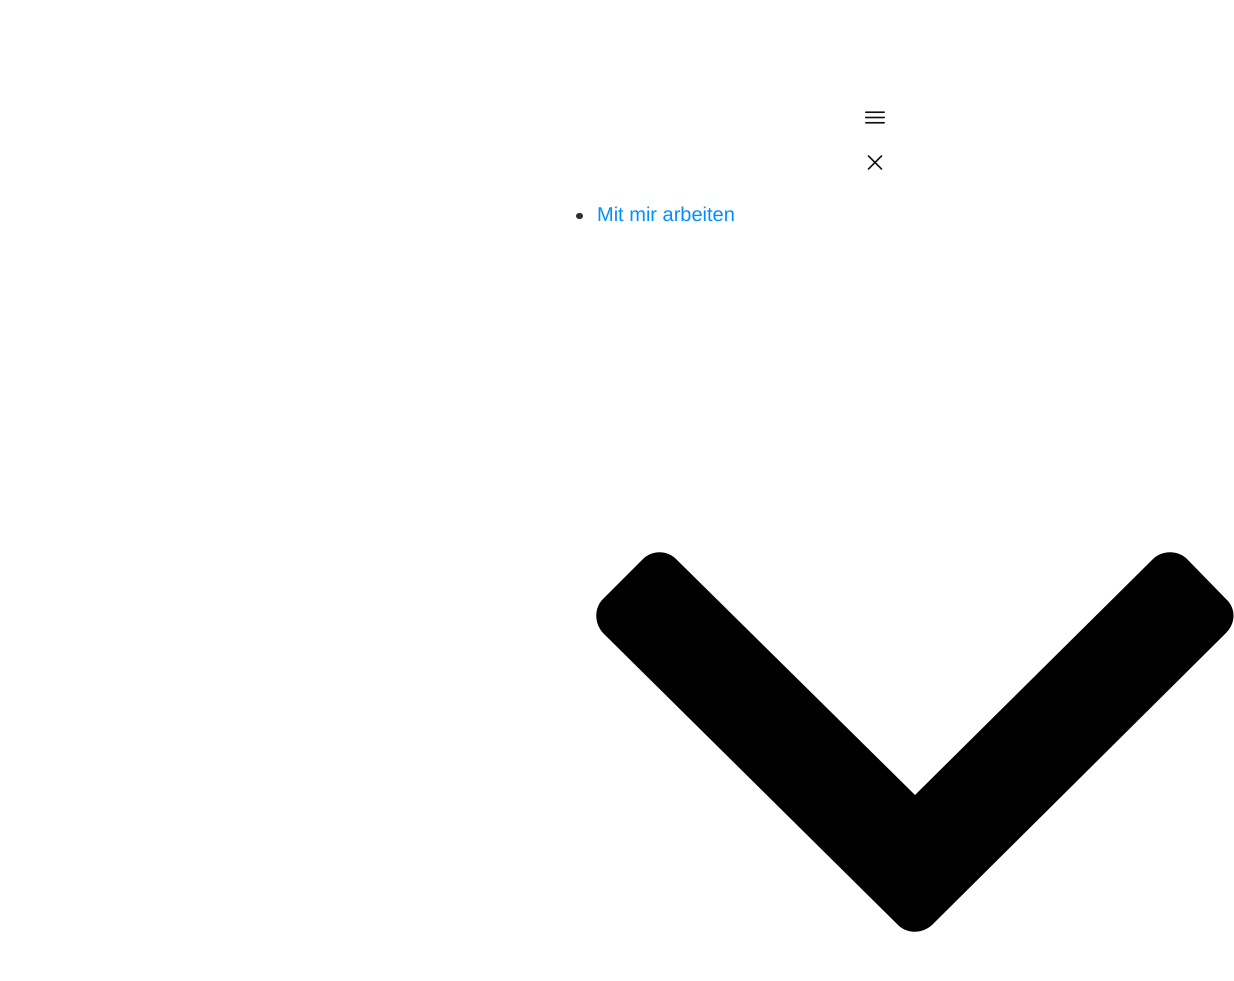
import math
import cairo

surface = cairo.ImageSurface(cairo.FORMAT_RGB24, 1234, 981)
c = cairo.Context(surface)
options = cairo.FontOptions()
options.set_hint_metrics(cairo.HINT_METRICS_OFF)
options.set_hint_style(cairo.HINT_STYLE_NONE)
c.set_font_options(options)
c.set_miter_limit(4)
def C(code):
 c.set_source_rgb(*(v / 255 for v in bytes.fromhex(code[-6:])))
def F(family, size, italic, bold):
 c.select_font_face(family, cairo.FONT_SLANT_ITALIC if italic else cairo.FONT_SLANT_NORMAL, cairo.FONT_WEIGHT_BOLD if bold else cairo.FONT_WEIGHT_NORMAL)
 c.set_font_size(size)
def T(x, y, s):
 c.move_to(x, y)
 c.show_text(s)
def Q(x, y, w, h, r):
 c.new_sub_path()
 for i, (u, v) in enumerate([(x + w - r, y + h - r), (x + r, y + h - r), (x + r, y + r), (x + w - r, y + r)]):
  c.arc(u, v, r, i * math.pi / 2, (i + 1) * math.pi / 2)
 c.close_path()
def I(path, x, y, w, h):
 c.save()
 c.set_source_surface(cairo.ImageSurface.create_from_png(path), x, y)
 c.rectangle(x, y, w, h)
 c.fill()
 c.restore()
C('ffffff')
c.paint()
I('1.png',865,111,20,13)
I('2.png',867,155,16,15)
C('2f2f2f')
Q(576,213,7,6,3)
c.fill()
F('Liberation Sans',20,0,0)
C('008fff')
T(597,221,'Mit mir arbeiten')
C('000000')
c.new_path()
c.move_to(898,925)
c.line_to(603,633)
c.curve_to(594,623,594,608,603,599)
c.line_to(643,559)
c.curve_to(652,550,667,550,676,559)
c.line_to(915,795)
c.line_to(1153,559)
c.curve_to(1162,550,1178,550,1187,559)
c.line_to(1226,599)
c.curve_to(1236,608,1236,623,1226,633)
c.line_to(932,925)
c.curve_to(922,934,907,934,898,925)
c.close_path()
c.fill()
surface.write_to_png('o.png')
